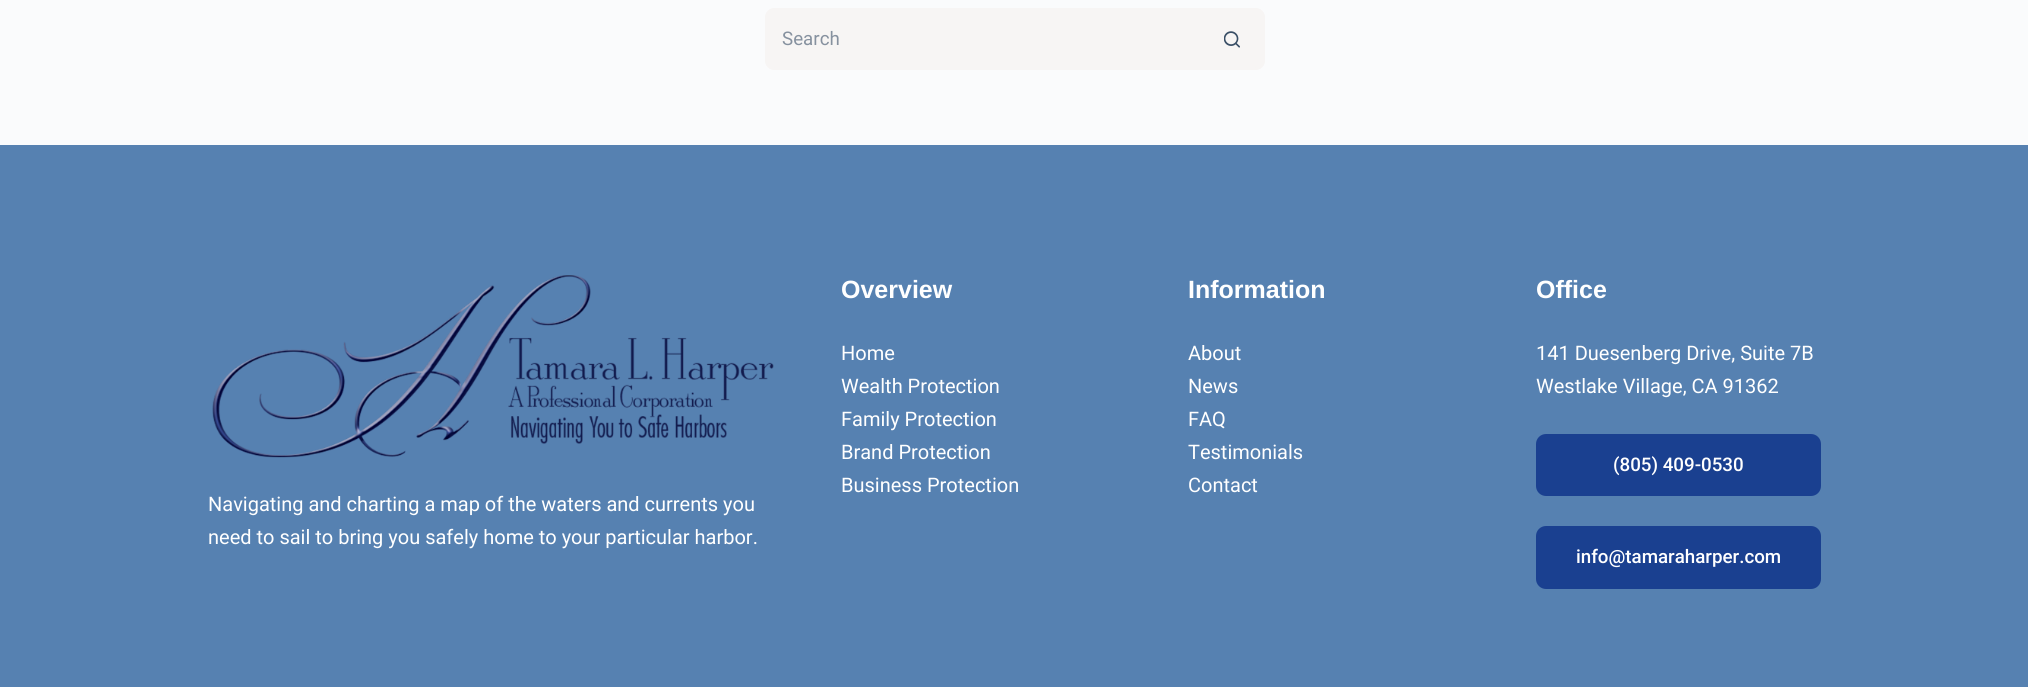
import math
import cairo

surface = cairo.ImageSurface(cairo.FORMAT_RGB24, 2028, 687)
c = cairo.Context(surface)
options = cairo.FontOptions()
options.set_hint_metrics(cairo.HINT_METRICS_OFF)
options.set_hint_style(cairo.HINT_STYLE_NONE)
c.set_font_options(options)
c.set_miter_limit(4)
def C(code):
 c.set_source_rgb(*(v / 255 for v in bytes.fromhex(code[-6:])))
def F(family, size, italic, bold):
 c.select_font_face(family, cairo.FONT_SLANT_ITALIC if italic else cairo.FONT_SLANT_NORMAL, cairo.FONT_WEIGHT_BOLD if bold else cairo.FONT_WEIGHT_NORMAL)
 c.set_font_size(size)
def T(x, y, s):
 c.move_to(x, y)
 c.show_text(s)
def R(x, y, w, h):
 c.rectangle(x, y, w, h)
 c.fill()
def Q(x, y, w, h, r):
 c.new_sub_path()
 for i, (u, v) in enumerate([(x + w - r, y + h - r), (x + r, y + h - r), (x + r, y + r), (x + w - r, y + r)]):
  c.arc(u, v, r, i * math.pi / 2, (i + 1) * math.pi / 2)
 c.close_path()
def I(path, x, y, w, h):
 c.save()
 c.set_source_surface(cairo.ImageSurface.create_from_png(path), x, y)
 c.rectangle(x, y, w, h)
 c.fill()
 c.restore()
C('fafbfc')
c.paint()
C('f7f5f4')
c.new_path()
c.move_to(775,8)
c.line_to(1203,8)
c.line_to(1203,70)
c.line_to(775,70)
c.curve_to(769.5,70,765,65.5,765,60)
c.line_to(765,18)
c.curve_to(765,12.5,769.5,8,775,8)
c.close_path()
c.fill()
c.set_fill_rule(cairo.FILL_RULE_EVEN_ODD)
c.new_path()
c.move_to(775,8)
c.line_to(1202,8)
c.line_to(1202,70)
c.line_to(775,70)
c.curve_to(769,70,765,66,765,60)
c.line_to(765,18)
c.curve_to(765,12,769,8,775,8)
c.close_path()
c.move_to(775,10)
c.line_to(1202,10)
c.line_to(1202,68)
c.line_to(775,68)
c.curve_to(771,68,768,64,768,60)
c.line_to(768,18)
c.curve_to(768,13,771,10,775,10)
c.close_path()
c.fill()
F('Roboto',18.75,0,0)
C('86919f')
T(782,45,'Search')
C('f7f5f4')
c.new_path()
c.move_to(1203,8)
c.line_to(1255,8)
c.curve_to(1260.5,8,1265,12.5,1265,18)
c.line_to(1265,60)
c.curve_to(1265,65.5,1260.5,70,1255,70)
c.line_to(1203,70)
c.close_path()
c.fill()
c.new_path()
c.move_to(1202,8)
c.line_to(1255,8)
c.curve_to(1261,8,1265,12,1265,18)
c.line_to(1265,60)
c.curve_to(1265,66,1261,70,1255,70)
c.line_to(1202,70)
c.close_path()
c.move_to(1202,10)
c.line_to(1255,10)
c.curve_to(1259,10,1262,13,1262,18)
c.line_to(1262,60)
c.curve_to(1262,64,1259,68,1255,68)
c.line_to(1202,68)
c.close_path()
c.fill()
I('1.png',1224,31,16,17)
C('5681b1')
R(0,145,2028,542)
I('2.png',212,275,562,183)
F('Roboto',20,0,0)
C('ffffff')
T(208,511,'Navigating and charting a map of the waters and currents you')
T(208,544,'need to sail to bring you safely home to your particular harbor.')
F('Liberation Sans',25,0,1)
T(841,298,'Overview')
F('Roboto',20,0,0)
T(841,360,'Home')
T(841,393,'Wealth Protection')
T(841,426,'Family Protection')
T(841,459,'Brand Protection')
T(841,492,'Business Protection')
F('Liberation Sans',25,0,1)
T(1188,298,'Information')
F('Roboto',20,0,0)
T(1188,360,'About')
T(1188,393,'News')
T(1188,426,'FAQ')
T(1188,459,'Testimonials')
T(1188,492,'Contact')
F('Liberation Sans',25,0,1)
T(1536,298,'Office')
F('Roboto',20,0,0)
T(1536,360,'141 Duesenberg Drive, Suite 7B')
T(1536,393,'Westlake Village, CA 91362')
C('1a4090')
Q(1536,434,285,62,10)
c.fill()
F('Roboto Medium',18.75,0,0)
C('ffffff')
T(1613,471,'(805) 409-0530')
C('1a4090')
Q(1536,526,285,63,10)
c.fill()
C('ffffff')
T(1576,563,'info@tamaraharper.com')
surface.write_to_png('o.png')
